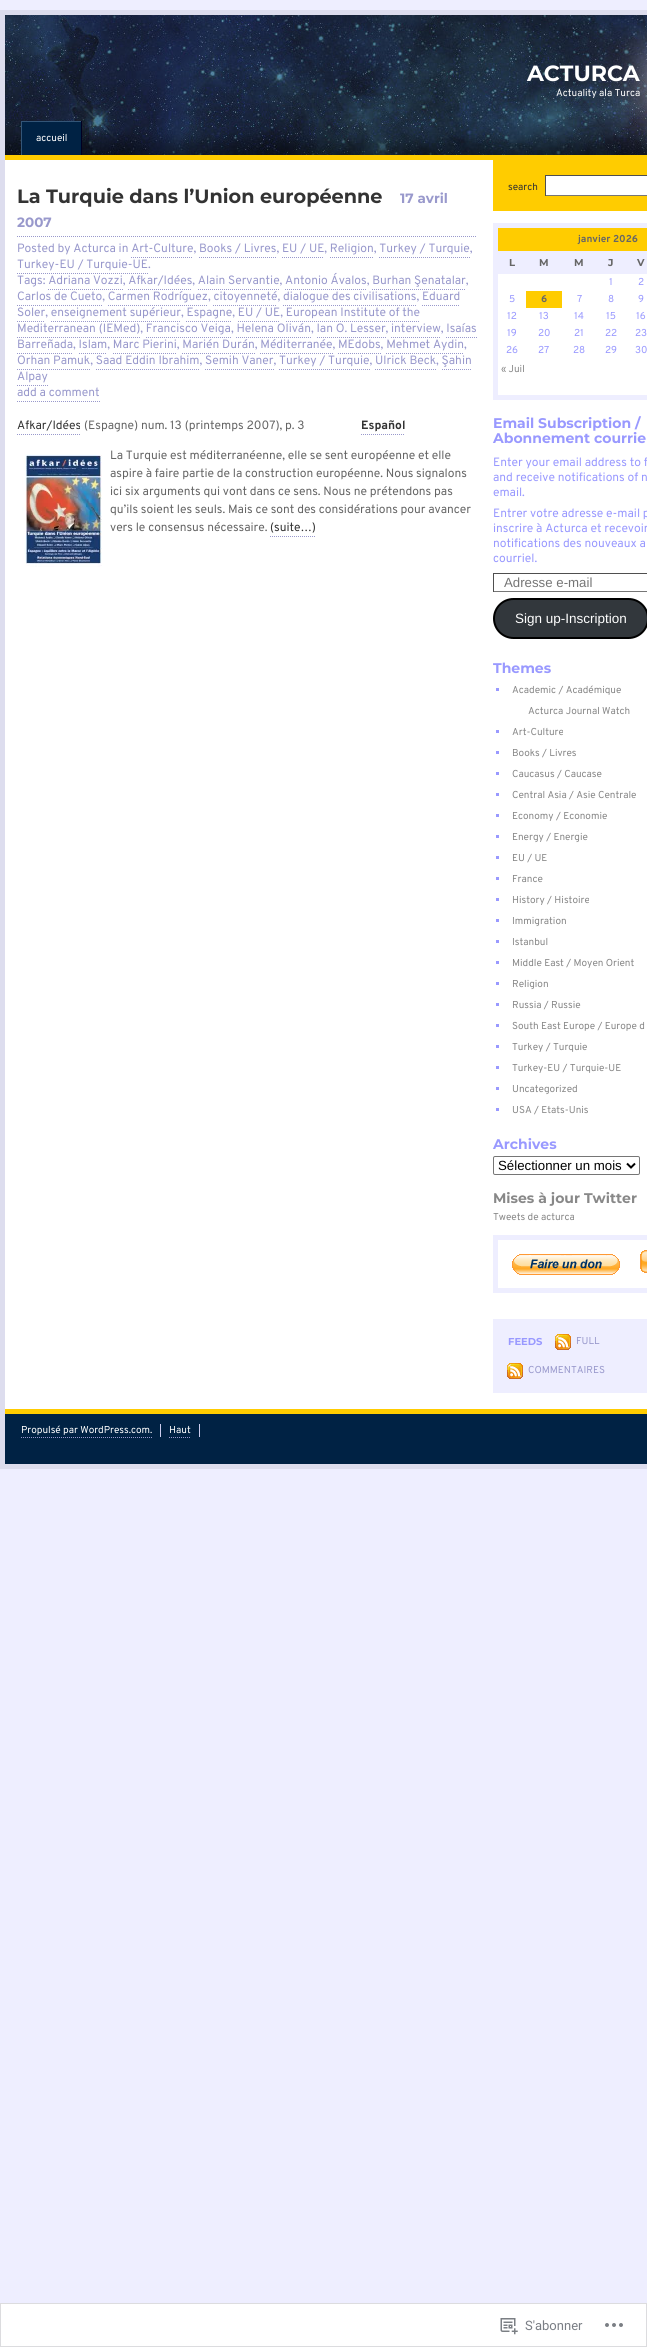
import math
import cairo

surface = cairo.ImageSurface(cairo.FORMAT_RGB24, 647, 2347)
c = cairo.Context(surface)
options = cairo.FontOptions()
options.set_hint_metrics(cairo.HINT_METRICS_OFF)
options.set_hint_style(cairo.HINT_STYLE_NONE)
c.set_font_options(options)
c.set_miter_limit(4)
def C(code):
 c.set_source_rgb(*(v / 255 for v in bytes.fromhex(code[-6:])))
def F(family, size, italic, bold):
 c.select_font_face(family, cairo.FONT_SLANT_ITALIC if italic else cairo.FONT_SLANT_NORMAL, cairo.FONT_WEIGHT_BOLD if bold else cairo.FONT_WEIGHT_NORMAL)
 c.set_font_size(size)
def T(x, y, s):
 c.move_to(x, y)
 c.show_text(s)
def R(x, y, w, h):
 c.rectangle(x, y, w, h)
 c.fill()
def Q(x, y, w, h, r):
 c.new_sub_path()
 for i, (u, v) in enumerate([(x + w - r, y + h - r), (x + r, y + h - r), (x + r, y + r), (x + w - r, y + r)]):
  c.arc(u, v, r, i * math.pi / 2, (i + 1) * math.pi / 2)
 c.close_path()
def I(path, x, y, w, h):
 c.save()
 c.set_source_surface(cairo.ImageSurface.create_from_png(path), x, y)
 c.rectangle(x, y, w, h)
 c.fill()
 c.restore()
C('eeeeff')
c.paint()
C('ffffff')
R(5,160,642,1249)
c.rectangle(2.5,12.5,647,1454)
C('ddddee')
c.set_line_width(5)
c.stroke()
I('1.png',5,15,642,140)
C('ffcc00')
R(5,155,642,5)
F('Montserrat Thin',22,0,0)
C('ffffff')
T(527,81,'ACTURCA')
F('Overpass',10,0,0)
T(556,96,'Actuality ala Turca')
C('002244')
R(22,122,59,33)
C('335577')
R(21,121,61,1)
C('000022')
R(81,121,1,34)
C('335577')
R(21,121,1,34)
C('ffffff')
T(36,141,'accueil')
F('Montserrat Thin',19.25,0,0)
C('333333')
T(17,203,'La Turquie dans l’Union européenne')
F('Montserrat Thin',13.5,0,0)
C('9999cc')
T(400,203,'17 avril')
T(17,227,'2007')
c.new_path()
c.move_to(17,236.5)
c.line_to(477,236.5)
c.set_line_width(1)
c.set_dash([1,1])
c.stroke()
F('Overpass',12,0,0)
T(17,252,'Posted by Acturca in Art-Culture, Books / Livres, EU / UE, Religion, Turkey / Turquie,')
c.new_path()
c.move_to(131,257.5)
c.line_to(193,257.5)
c.stroke()
c.new_path()
c.move_to(199,257.5)
c.line_to(276,257.5)
c.stroke()
c.new_path()
c.move_to(282,257.5)
c.line_to(324,257.5)
c.stroke()
c.new_path()
c.move_to(330,257.5)
c.line_to(374,257.5)
c.stroke()
c.new_path()
c.move_to(379,257.5)
c.line_to(470,257.5)
c.stroke()
T(17,268,'Turkey-EU / Turquie-UE.')
c.new_path()
c.move_to(17,273.5)
c.line_to(148,273.5)
c.stroke()
T(17,284,'Tags: Adriana Vozzi, Afkar/Idées, Alain Servantie, Antonio Ávalos, Burhan Şenatalar,')
c.new_path()
c.move_to(48,289.5)
c.line_to(123,289.5)
c.stroke()
c.new_path()
c.move_to(128,289.5)
c.line_to(192,289.5)
c.stroke()
c.new_path()
c.move_to(198,289.5)
c.line_to(280,289.5)
c.stroke()
c.new_path()
c.move_to(285,289.5)
c.line_to(367,289.5)
c.stroke()
c.new_path()
c.move_to(372,289.5)
c.line_to(466,289.5)
c.stroke()
T(17,300,'Carlos de Cueto, Carmen Rodríguez, citoyenneté, dialogue des civilisations, Eduard')
c.new_path()
c.move_to(17,305.5)
c.line_to(102,305.5)
c.stroke()
c.new_path()
c.move_to(108,305.5)
c.line_to(208,305.5)
c.stroke()
c.new_path()
c.move_to(213,305.5)
c.line_to(277,305.5)
c.stroke()
c.new_path()
c.move_to(283,305.5)
c.line_to(416,305.5)
c.stroke()
T(17,316,'Soler, enseignement supérieur, Espagne, EU / UE, European Institute of the')
c.new_path()
c.move_to(422,305.5)
c.line_to(460,305.5)
c.stroke()
c.new_path()
c.move_to(17,321.5)
c.line_to(45,321.5)
c.stroke()
c.new_path()
c.move_to(51,321.5)
c.line_to(181,321.5)
c.stroke()
c.new_path()
c.move_to(186,321.5)
c.line_to(232,321.5)
c.stroke()
c.new_path()
c.move_to(238,321.5)
c.line_to(280,321.5)
c.stroke()
T(17,332,'Mediterranean (IEMed), Francisco Veiga, Helena Oliván, Ian O. Lesser, interview, Isaías')
c.new_path()
c.move_to(286,321.5)
c.line_to(420,321.5)
c.stroke()
c.new_path()
c.move_to(17,337.5)
c.line_to(140,337.5)
c.stroke()
c.new_path()
c.move_to(146,337.5)
c.line_to(231,337.5)
c.stroke()
c.new_path()
c.move_to(236,337.5)
c.line_to(311,337.5)
c.stroke()
c.new_path()
c.move_to(317,337.5)
c.line_to(386,337.5)
c.stroke()
c.new_path()
c.move_to(391,337.5)
c.line_to(441,337.5)
c.stroke()
T(17,348,'Barreñada, Islam, Marc Pierini, Marién Durán, Méditerranée, MEdobs, Mehmet Aydin,')
c.new_path()
c.move_to(446,337.5)
c.line_to(477,337.5)
c.stroke()
c.new_path()
c.move_to(17,353.5)
c.line_to(73,353.5)
c.stroke()
c.new_path()
c.move_to(79,353.5)
c.line_to(107,353.5)
c.stroke()
c.new_path()
c.move_to(113,353.5)
c.line_to(177,353.5)
c.stroke()
c.new_path()
c.move_to(182,353.5)
c.line_to(255,353.5)
c.stroke()
c.new_path()
c.move_to(260,353.5)
c.line_to(333,353.5)
c.stroke()
c.new_path()
c.move_to(338,353.5)
c.line_to(381,353.5)
c.stroke()
c.new_path()
c.move_to(386,353.5)
c.line_to(464,353.5)
c.stroke()
T(17,364,'Orhan Pamuk, Saad Eddin Ibrahim, Semih Vaner, Turkey / Turquie, Ulrick Beck, Şahin')
c.new_path()
c.move_to(17,369.5)
c.line_to(90,369.5)
c.stroke()
c.new_path()
c.move_to(96,369.5)
c.line_to(200,369.5)
c.stroke()
c.new_path()
c.move_to(205,369.5)
c.line_to(274,369.5)
c.stroke()
c.new_path()
c.move_to(279,369.5)
c.line_to(370,369.5)
c.stroke()
c.new_path()
c.move_to(375,369.5)
c.line_to(436,369.5)
c.stroke()
T(17,380,'Alpay')
c.new_path()
c.move_to(442,369.5)
c.line_to(472,369.5)
c.stroke()
c.new_path()
c.move_to(17,385.5)
c.line_to(48,385.5)
c.stroke()
T(17,396,'add a comment')
c.new_path()
c.move_to(17,401.5)
c.line_to(100,401.5)
c.stroke()
C('333333')
T(17,429,'Afkar/Idées')
c.new_path()
c.move_to(17,434.5)
c.line_to(81,434.5)
C('9999cc')
c.stroke()
C('666666')
T(84,429,'(Espagne) num. 13 (printemps 2007), p. 3')
F('Overpass',12,0,1)
C('333333')
T(361,429,'Español')
c.new_path()
c.move_to(361,434.5)
c.line_to(405,434.5)
C('9999cc')
c.stroke()
I('2.png',22,454,80,113)
F('Overpass',12,0,0)
C('666666')
T(110,459,'La Turquie est méditerranéenne, elle se sent européenne et elle')
T(110,477,'aspire à faire partie de la construction européenne. Nous signalons')
T(110,495,'ici six arguments qui vont dans ce sens. Nous ne prétendons pas')
T(110,513,'qu’ils soient les seuls. Mais ce sont des considérations pour avancer')
T(110,531,'vers le consensus nécessaire.')
C('333333')
T(270,531,'(suite…)')
c.new_path()
c.move_to(270,536.5)
c.line_to(316,536.5)
C('9999cc')
c.stroke()
C('ffcc00')
R(493,160,154,51)
F('Overpass',10,0,0)
C('333333')
T(508,190,'search')
C('ffffff')
R(546,176,101,19)
C('4f4f4f')
R(545,175,102,1)
C('767676')
R(545,195,102,1)
C('4f4f4f')
R(545,175,1,21)
c.rectangle(495.5,225.5,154,172)
C('eeeeff')
c.set_line_width(5)
c.set_dash([])
c.stroke()
C('ffcc00')
R(498,228,149,23)
F('Overpass',10,0,1)
C('666666')
T(578,242,'janvier 2026')
C('eeeeff')
R(498,251,149,23)
F('Montserrat Thin',10,0,0)
C('666666')
T(509,266,'L')
T(539,266,'M')
T(574,266,'M')
T(608,266,'J')
T(637,266,'V')
F('Overpass',10,0,0)
C('9999ff')
T(609,285,'1')
T(638,285,'2')
T(509,302,'5')
C('ffcc00')
R(526,291,36,17)
F('Overpass',10,0,1)
C('666666')
T(541,302,'6')
F('Overpass',10,0,0)
C('9999ff')
T(577,302,'7')
T(608,302,'8')
T(638,302,'9')
T(507,319,'12')
T(539,319,'13')
T(574,319,'14')
T(606,319,'15')
T(636,319,'16')
T(507,336,'19')
T(538,336,'20')
T(574,336,'21')
T(605,336,'22')
T(635,336,'23')
T(506,353,'26')
T(538,353,'27')
T(573,353,'28')
T(605,353,'29')
T(635,353,'30')
C('888888')
T(501,372,'« Juil')
F('Montserrat Thin',14,0,0)
C('9999ff')
T(493,428,'Email Subscription /')
T(493,443,'Abonnement courrie')
F('Overpass',12,0,0)
T(493,466,'Enter your email address to f')
T(493,481,'and receive notifications of n')
T(493,496,'email.')
T(493,517,'Entrer votre adresse e-mail p')
T(493,532,'inscrire à Acturca et recevoir')
T(493,547,'notifications des nouveaux a')
T(493,562,'courriel.')
C('4f4f4f')
R(493,573,154,1)
C('767676')
R(493,591,154,1)
C('4f4f4f')
R(493,573,1,19)
F('Liberation Sans',13.25,0,0)
C('757575')
T(504,587,'Adresse e-mail')
C('32373c')
Q(494,599,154,39,19.5)
c.fill_preserve()
C('000000')
c.set_line_width(2)
c.stroke()
F('Liberation Sans',13.5,0,0)
C('ffffff')
T(515,623,'Sign up-Inscription')
F('Montserrat Thin',14,0,0)
C('9999ff')
T(493,673,'Themes')
R(496,688,3,3)
F('Overpass',10,0,0)
C('888888')
T(512,693,'Academic / Académique')
T(528,714,'Acturca Journal Watch')
C('9999ff')
R(496,730,3,3)
C('888888')
T(512,735,'Art-Culture')
C('9999ff')
R(496,751,3,3)
C('888888')
T(512,756,'Books / Livres')
C('9999ff')
R(496,772,3,3)
C('888888')
T(512,777,'Caucasus / Caucase')
C('9999ff')
R(496,793,3,3)
C('888888')
T(512,798,'Central Asia / Asie Centrale')
C('9999ff')
R(496,814,3,3)
C('888888')
T(512,819,'Economy / Economie')
C('9999ff')
R(496,835,3,3)
C('888888')
T(512,840,'Energy / Energie')
C('9999ff')
R(496,856,3,3)
C('888888')
T(512,861,'EU / UE')
C('9999ff')
R(496,877,3,3)
C('888888')
T(512,882,'France')
C('9999ff')
R(496,898,3,3)
C('888888')
T(512,903,'History / Histoire')
C('9999ff')
R(496,919,3,3)
C('888888')
T(512,924,'Immigration')
C('9999ff')
R(496,940,3,3)
C('888888')
T(512,945,'Istanbul')
C('9999ff')
R(496,961,3,3)
C('888888')
T(512,966,'Middle East / Moyen Orient')
C('9999ff')
R(496,982,3,3)
C('888888')
T(512,987,'Religion')
C('9999ff')
R(496,1003,3,3)
C('888888')
T(512,1008,'Russia / Russie')
C('9999ff')
R(496,1024,3,3)
C('888888')
T(512,1029,'South East Europe / Europe d')
C('9999ff')
R(496,1045,3,3)
C('888888')
T(512,1050,'Turkey / Turquie')
C('9999ff')
R(496,1066,3,3)
C('888888')
T(512,1071,'Turkey-EU / Turquie-UE')
C('9999ff')
R(496,1087,3,3)
C('888888')
T(512,1092,'Uncategorized')
C('9999ff')
R(496,1108,3,3)
C('888888')
T(512,1113,'USA / Etats-Unis')
F('Montserrat Thin',14,0,0)
C('9999ff')
T(493,1149,'Archives')
Q(493.5,1156.5,146,18,1.5)
C('767676')
c.set_line_width(1)
c.stroke()
c.new_path()
c.move_to(627,1163.5)
c.line_to(631,1167.5)
c.line_to(635,1163.5)
C('000000')
c.set_line_width(2)
c.stroke()
F('Liberation Sans',13.25,0,0)
T(498,1170,'Sélectionner un mois')
F('Montserrat Thin',14,0,0)
C('888888')
T(493,1203,'Mises à jour Twitter')
F('Overpass',10,0,0)
T(493,1220,'Tweets de acturca')
c.rectangle(495.5,1237.5,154,53)
C('eeeeff')
c.set_line_width(5)
c.stroke()
I('3.png',512,1254,108,21)
I('4.png',640,1250,7,23)
R(493,1319,154,74)
F('Montserrat Thin',10,0,0)
C('9999ff')
T(508,1345,'FEEDS')
I('5.png',555,1334,16,16)
F('Overpass',10,0,0)
C('9999cc')
T(576,1344,'FULL')
I('5.png',507,1363,16,16)
T(528,1373,'COMMENTAIRES')
C('002244')
R(5,1414,642,50)
C('ffcc00')
R(5,1409,642,5)
C('ccccee')
R(160,1424,1,13)
C('ffffff')
T(21,1433,'Propulsé par WordPress.com.')
c.new_path()
c.move_to(21,1437.5)
c.line_to(152,1437.5)
C('9999cc')
c.set_line_width(1)
c.set_dash([1,1])
c.stroke()
C('ccccee')
R(199,1424,1,13)
C('ffffff')
T(169,1433,'Haut')
c.new_path()
c.move_to(169,1437.5)
c.line_to(191,1437.5)
C('9999cc')
c.stroke()
C('ffffff')
c.rectangle(.5,2303.5,646,43)
c.fill_preserve()
C('dcdcdf')
c.set_dash([])
c.stroke()
I('6.png',500,2318,18,17)
F('Roboto',13,0,0)
C('7a7e85')
T(525,2330,'S\'abonner')
I('7.png',605,2323,18,4)
surface.write_to_png('o.png')
